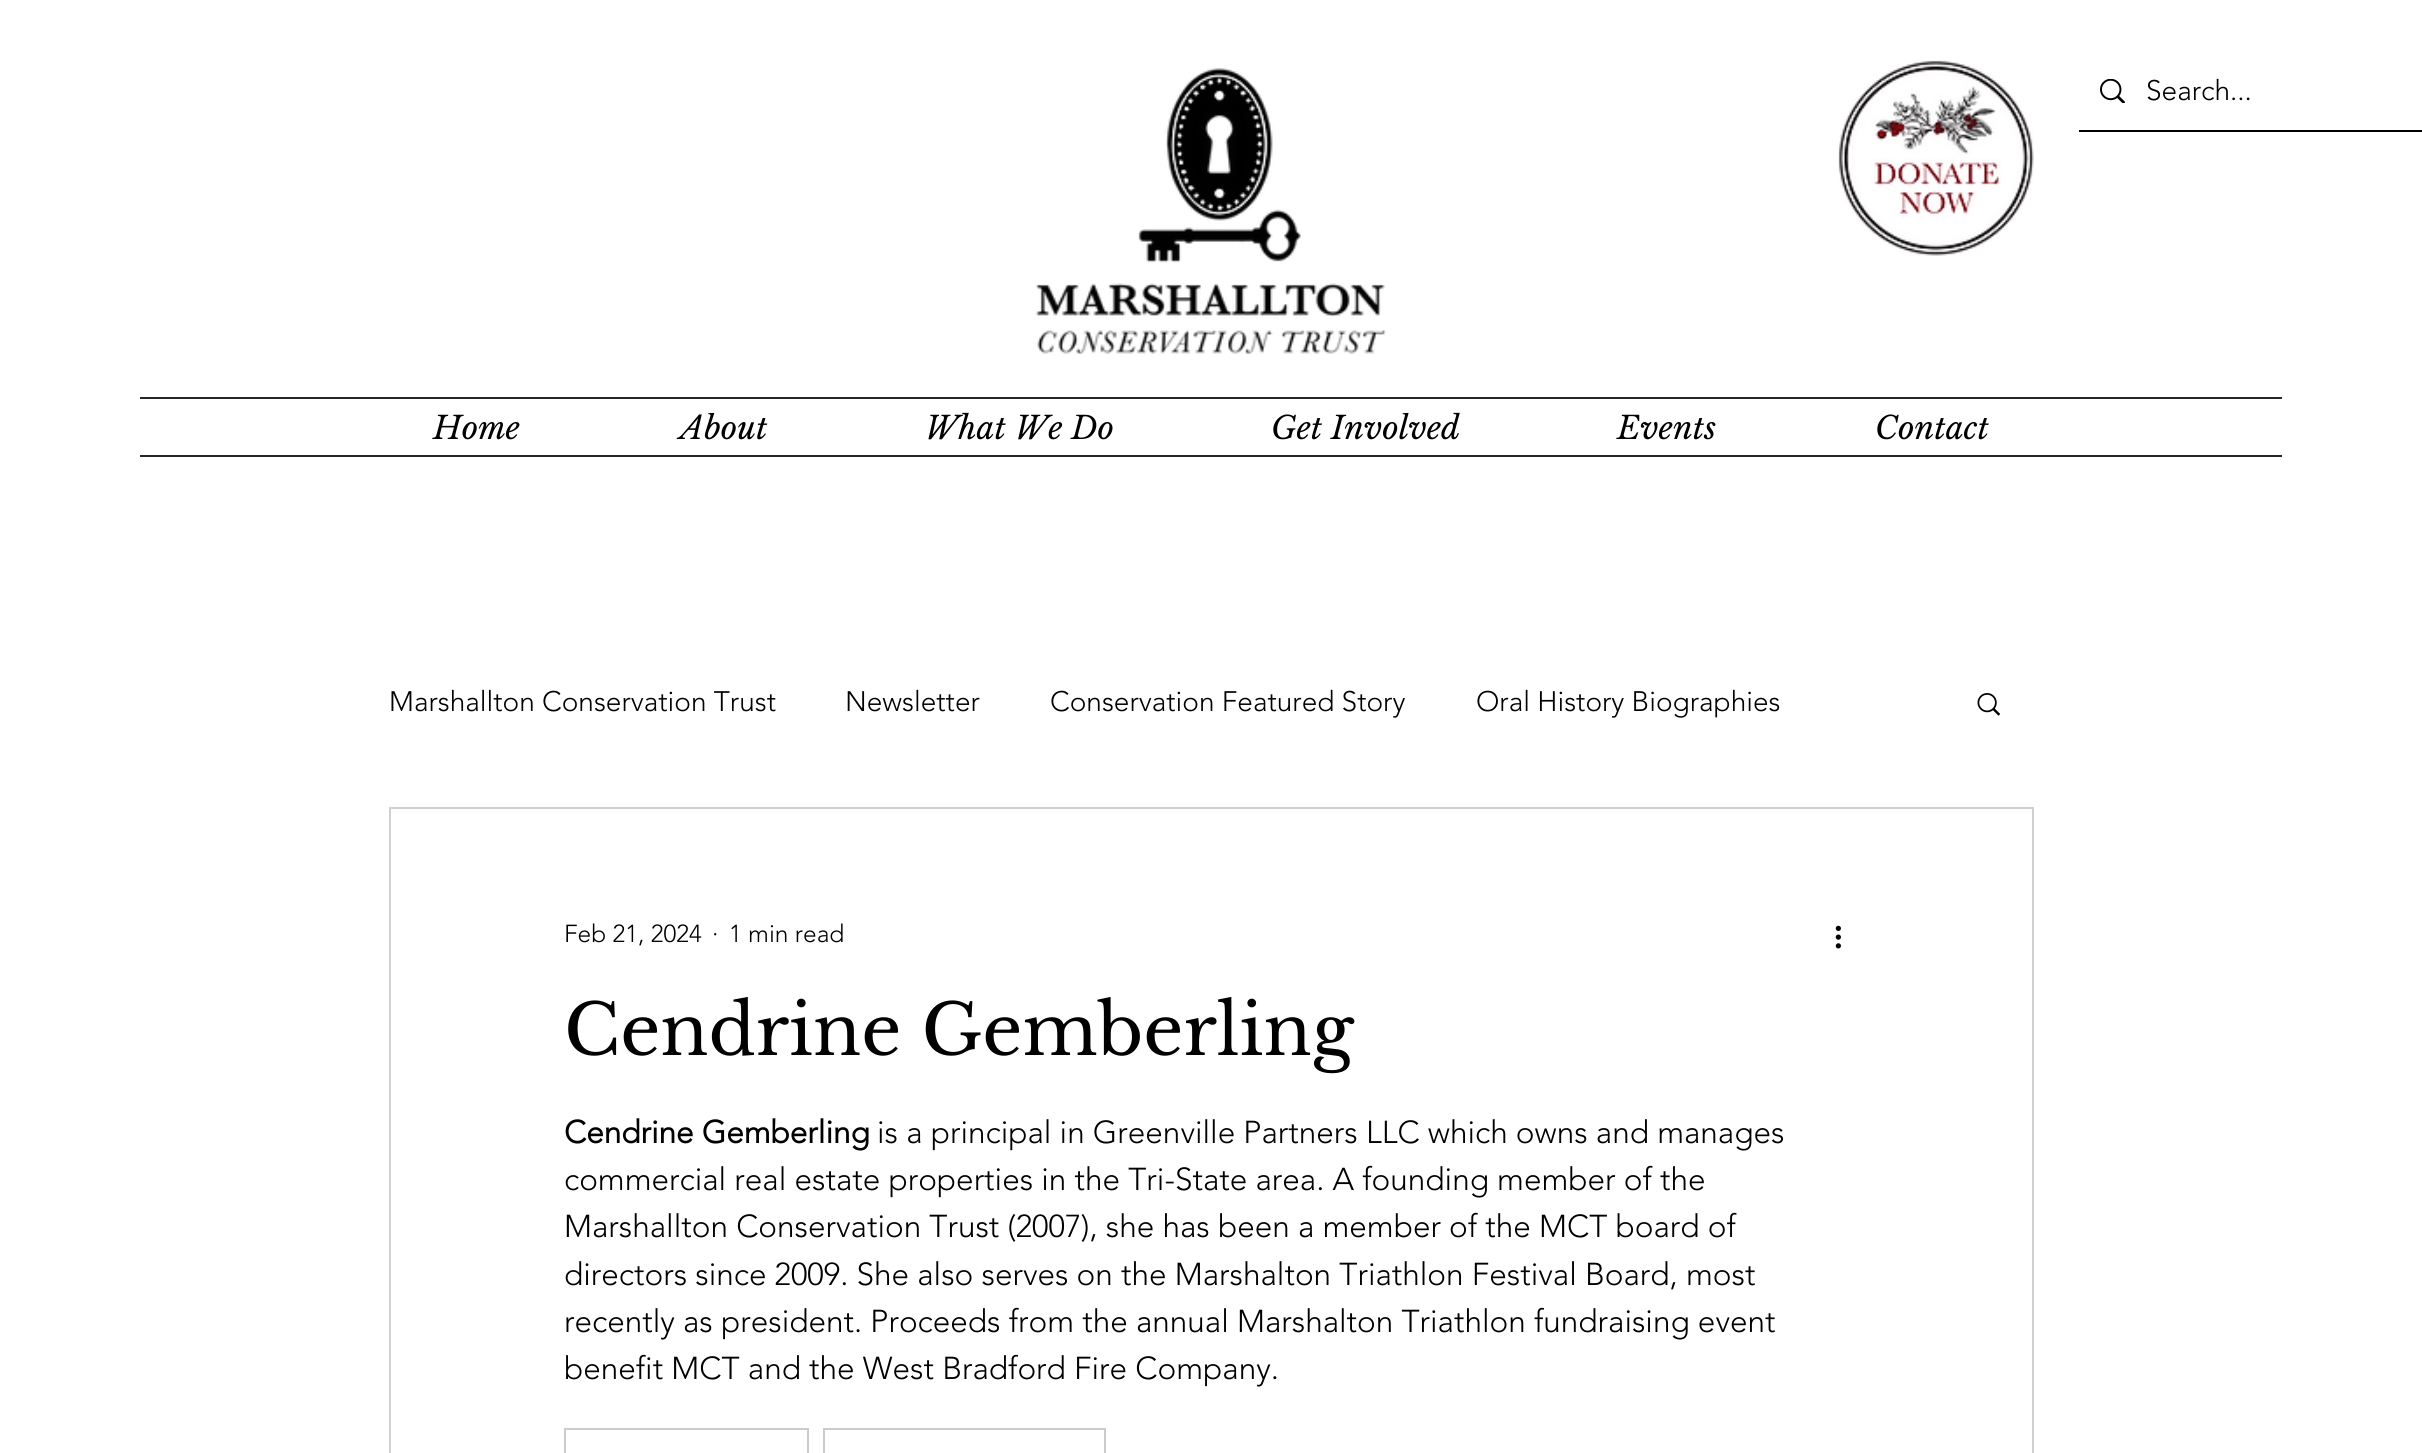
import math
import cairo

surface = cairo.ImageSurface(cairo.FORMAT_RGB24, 2422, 1453)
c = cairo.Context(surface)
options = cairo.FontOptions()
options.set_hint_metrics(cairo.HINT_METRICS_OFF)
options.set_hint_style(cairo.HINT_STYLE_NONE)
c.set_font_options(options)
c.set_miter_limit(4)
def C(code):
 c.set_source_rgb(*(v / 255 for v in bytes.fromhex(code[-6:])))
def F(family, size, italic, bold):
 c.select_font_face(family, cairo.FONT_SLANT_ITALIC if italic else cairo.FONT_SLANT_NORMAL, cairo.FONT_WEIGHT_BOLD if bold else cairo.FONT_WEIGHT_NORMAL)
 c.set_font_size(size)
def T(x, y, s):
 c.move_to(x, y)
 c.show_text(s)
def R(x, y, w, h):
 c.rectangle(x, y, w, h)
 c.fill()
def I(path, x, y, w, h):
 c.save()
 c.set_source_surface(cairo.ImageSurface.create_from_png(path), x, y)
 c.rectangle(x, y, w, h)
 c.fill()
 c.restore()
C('ffffff')
c.paint()
I('1.png',1035,68,351,287)
I('2.png',1838,60,196,196)
C('000000')
R(2079,130,343,2)
I('3.png',2100,79,25,24)
F('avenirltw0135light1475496 Light',28,0,0)
T(2146,100,'Search...')
C('282626')
R(140,397,2142,2)
F('Libre Baskerville',31.5,1,0)
C('000000')
T(433,439,'Home')
T(680,439,'About')
T(925,439,'What We Do')
T(1271,439,'Get Involved')
T(1617,439,'Events')
T(1875,439,'Contact')
C('282626')
R(140,455,2142,2)
F('avenirltw0135light1475496 Light',28,0,0)
C('000000')
T(389,711,'Marshallton Conservation Trust')
T(845,711,'Newsletter')
T(1050,711,'Conservation Featured Story')
T(1476,711,'Oral History Biographies')
I('4.png',1977,693,23,23)
c.rectangle(390,808,1643,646)
C('cdd1d4')
c.stroke()
F('avenirltw0135light1475496 Light',24.5,0,0)
C('000000')
T(564,942,'Feb 21, 2024')
T(712,942,'·')
T(729,942,'1 min read')
I('5.png',1835,925,6,24)
F('Libre Baskerville',70,0,0)
T(564,1055,'Cendrine Gemberling')
F('avenirltw0135light1475496',31.5,0,1)
T(564,1143,'Cendrine Gemberling')
F('avenirltw0135light1475496 Light',31.5,0,0)
T(877,1143,'is a principal in Greenville Partners LLC which owns and manages')
T(564,1190,'commercial real estate properties in the Tri-State area. A founding member of the')
T(564,1237,'Marshallton Conservation Trust (2007), she has been a member of the MCT board of')
T(564,1285,'directors since 2009. She also serves on the Marshalton Triathlon Festival Board, most')
T(564,1332,'recently as president. Proceeds from the annual Marshalton Triathlon fundraising event')
T(564,1379,'benefit MCT and the West Bradford Fire Company.')
c.rectangle(565,1429,243,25)
C('cccccc')
c.stroke()
c.rectangle(824,1429,281,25)
c.stroke()
surface.write_to_png('o.png')
